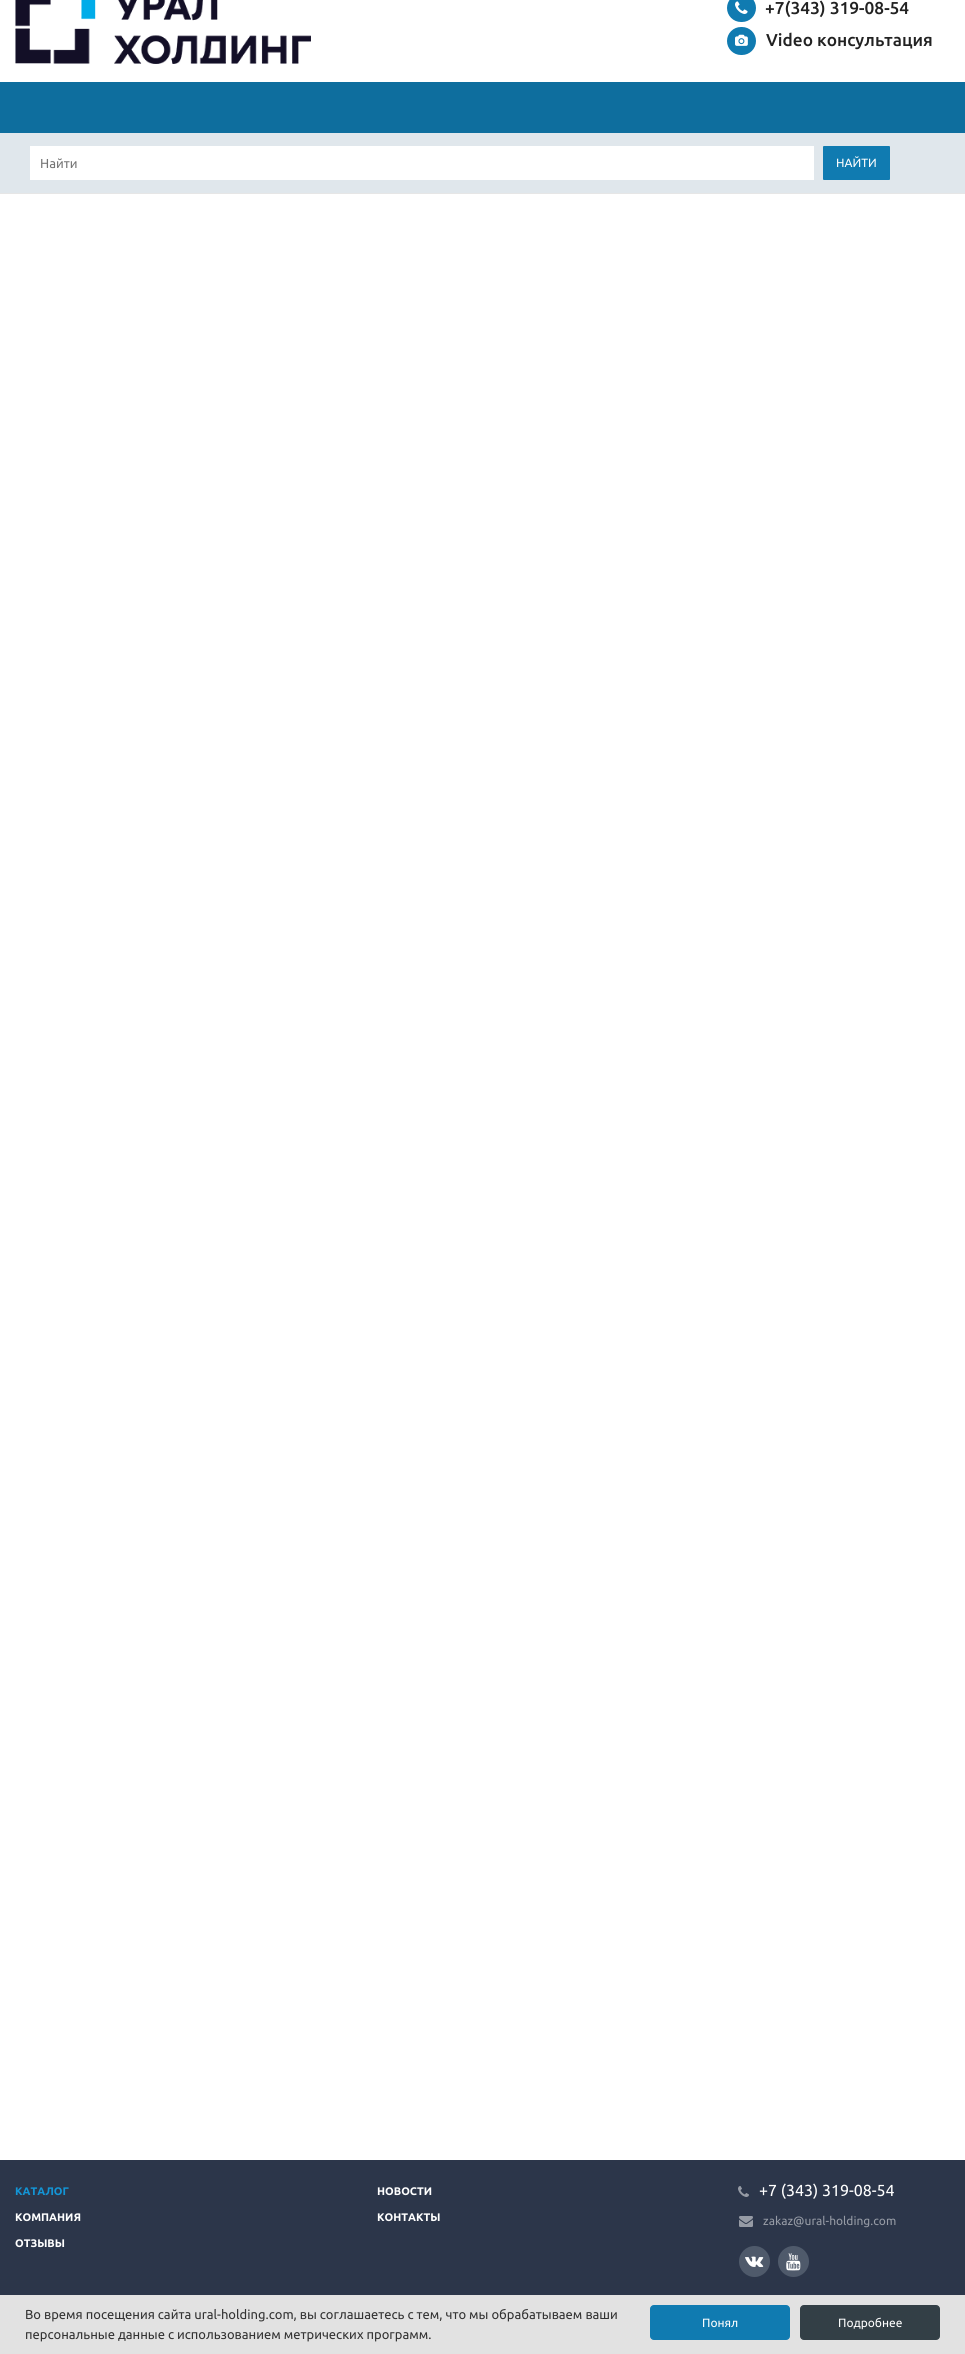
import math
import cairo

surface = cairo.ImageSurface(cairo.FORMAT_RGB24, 965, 2354)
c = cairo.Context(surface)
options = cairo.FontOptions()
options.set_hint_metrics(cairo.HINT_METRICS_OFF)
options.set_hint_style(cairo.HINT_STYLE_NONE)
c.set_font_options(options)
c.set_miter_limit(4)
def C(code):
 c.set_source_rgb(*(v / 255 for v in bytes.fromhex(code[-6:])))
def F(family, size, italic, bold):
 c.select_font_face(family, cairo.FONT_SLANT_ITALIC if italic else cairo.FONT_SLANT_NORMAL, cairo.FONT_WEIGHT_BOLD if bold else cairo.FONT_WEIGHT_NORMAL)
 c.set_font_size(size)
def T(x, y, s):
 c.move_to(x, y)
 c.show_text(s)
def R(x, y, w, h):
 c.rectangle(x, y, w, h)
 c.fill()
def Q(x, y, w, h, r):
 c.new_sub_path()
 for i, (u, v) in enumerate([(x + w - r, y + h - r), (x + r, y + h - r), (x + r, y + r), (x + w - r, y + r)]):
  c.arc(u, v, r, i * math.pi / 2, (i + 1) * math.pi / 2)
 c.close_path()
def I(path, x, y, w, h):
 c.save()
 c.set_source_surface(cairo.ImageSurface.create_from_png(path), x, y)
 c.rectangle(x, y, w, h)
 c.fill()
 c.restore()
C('ffffff')
c.paint()
I('1.png',15,0,296,64)
C('107bb1')
Q(727,-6,29,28,14)
c.fill()
I('2.png',735,1,13,13)
F('Ubuntu Medium',17.25,0,0)
C('222222')
T(765,14,'+7(343) 319-08-54')
C('107bb1')
Q(727,27,29,28,14)
c.fill()
I('3.png',735,34,13,12)
C('222222')
T(766,46,'Video консультация')
C('0e6e9e')
R(0,82,965,51)
C('e6e6e6')
R(0,193,965,1)
C('e0e7ec')
R(0,133,965,60)
C('ffffff')
R(30,146,784,34)
F('Ubuntu',13,0,0)
C('757575')
T(40,168,'Найти')
C('107bb1')
Q(823.5,146.5,66,33,.5)
c.fill_preserve()
c.set_line_width(1)
c.stroke()
F('Ubuntu',12,0,0)
C('ffffff')
T(836,167,'НАЙТИ')
C('2c364a')
R(0,2160,965,135)
F('Ubuntu',11,0,1)
C('1395d6')
T(15,2195,'КАТАЛОГ')
C('ffffff')
T(377,2195,'НОВОСТИ')
T(15,2221,'КОМПАНИЯ')
T(377,2221,'КОНТАКТЫ')
T(15,2247,'ОТЗЫВЫ')
I('4.png',738,2186,11,11)
F('Ubuntu',16,0,0)
T(759,2196,'+7 (343) 319-08-54')
I('5.png',739,2216,14,11)
F('Ubuntu',12,0,0)
C('969ba5')
T(763,2225,'zakaz@ural-holding.com')
C('4f5a6b')
c.new_path()
c.arc(754.5,2261.5,15.5,0,2 * math.pi)
c.fill()
I('6.png',745,2256,19,11)
c.arc(793.5,2261.5,15.5,0,2 * math.pi)
c.fill()
I('7.png',786,2253,15,18)
C('e2e2e2')
R(0,2295,965,59)
F('Ubuntu',13,0,0)
C('333333')
T(25,2319,'Во время посещения сайта ural-holding.com, вы соглашаетесь с тем, что мы обрабатываем ваши')
T(25,2339,'персональные данные с использованием метрических программ.')
C('107bb1')
Q(650.5,2305.5,139,34,3.5)
c.fill_preserve()
c.stroke()
F('Ubuntu',12,0,0)
C('ffffff')
T(702,2327,'Понял')
C('333f46')
Q(800.5,2305.5,139,34,3.5)
c.fill_preserve()
c.stroke()
C('ffffff')
T(838,2327,'Подробнее')
surface.write_to_png('o.png')
